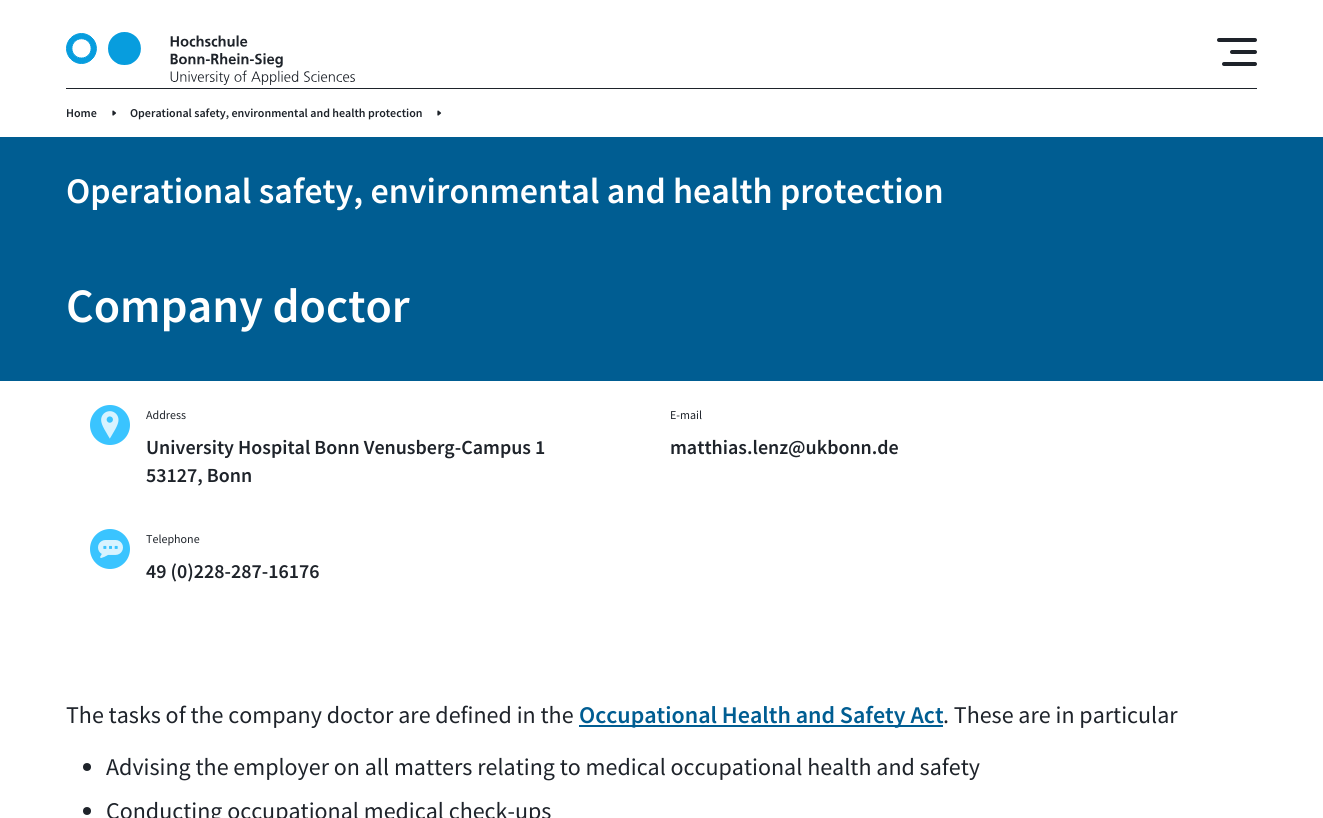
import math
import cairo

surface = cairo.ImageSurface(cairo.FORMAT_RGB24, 1323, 818)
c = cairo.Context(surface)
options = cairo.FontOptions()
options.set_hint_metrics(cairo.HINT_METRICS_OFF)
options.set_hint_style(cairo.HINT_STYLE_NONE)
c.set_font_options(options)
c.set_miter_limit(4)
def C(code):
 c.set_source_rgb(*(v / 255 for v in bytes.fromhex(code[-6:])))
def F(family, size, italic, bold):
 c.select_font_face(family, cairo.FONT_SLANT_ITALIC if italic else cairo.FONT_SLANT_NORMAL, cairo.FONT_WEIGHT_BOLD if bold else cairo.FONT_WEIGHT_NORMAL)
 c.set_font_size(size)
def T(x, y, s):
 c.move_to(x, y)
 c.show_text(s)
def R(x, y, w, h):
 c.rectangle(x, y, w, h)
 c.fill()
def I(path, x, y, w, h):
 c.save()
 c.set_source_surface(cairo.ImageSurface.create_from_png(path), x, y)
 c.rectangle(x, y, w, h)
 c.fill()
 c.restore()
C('ffffff')
c.paint()
I('1.png',66,32,289,53)
I('2.png',1217,38,40,28)
C('1e232a')
R(66,88,1191,1)
F('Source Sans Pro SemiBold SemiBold',12,0,0)
T(66,117,'Home')
I('3.png',112,110,5,6)
T(130,117,'Operational safety, environmental and health protection')
I('3.png',437,110,5,6)
C('005d92')
R(0,137,1323,244)
F('Source Sans Pro SemiBold SemiBold',36,0,0)
C('ffffff')
T(66,203,'Operational safety, environmental and health protection')
F('Source Sans Pro SemiBold SemiBold',48,0,0)
T(66,322,'Company doctor')
C('3ac4ff')
c.new_path()
c.arc(110,425,20,0,2 * math.pi)
c.fill()
I('4.png',101,411,18,28)
F('Source Sans Pro',12,0,0)
C('1e232a')
T(146,419,'Address')
F('Source Sans Pro SemiBold SemiBold',20,0,0)
T(146,454,'University Hospital Bonn Venusberg-Campus 1')
T(146,482,'53127, Bonn')
C('3ac4ff')
c.new_path()
c.arc(110,549,20,0,2 * math.pi)
c.fill()
I('5.png',98,540,25,18)
F('Source Sans Pro',12,0,0)
C('1e232a')
T(146,543,'Telephone')
F('Source Sans Pro SemiBold SemiBold',20,0,0)
T(146,578,'49 (0)228-287-16176')
F('Source Sans Pro',12,0,0)
T(670,419,'E-mail')
F('Source Sans Pro SemiBold SemiBold',20,0,0)
T(670,454,'matthias.lenz@ukbonn.de')
F('Source Sans Pro',24,0,0)
T(66,723,'The tasks of the company doctor are defined in the')
C('005d92')
R(579,725,364,2)
F('Source Sans Pro SemiBold SemiBold',24,0,0)
T(579,723,'Occupational Health and Safety Act')
F('Source Sans Pro',24,0,0)
C('1e232a')
T(943,723,'. These are in particular')
c.new_path()
c.arc(87,767,4,0,2 * math.pi)
c.fill()
T(106,775,'Advising the employer on all matters relating to medical occupational health and safety')
c.new_path()
c.arc(87,811,4,0,2 * math.pi)
c.fill()
T(106,819,'Conducting occupational medical check-ups')
surface.write_to_png('o.png')
